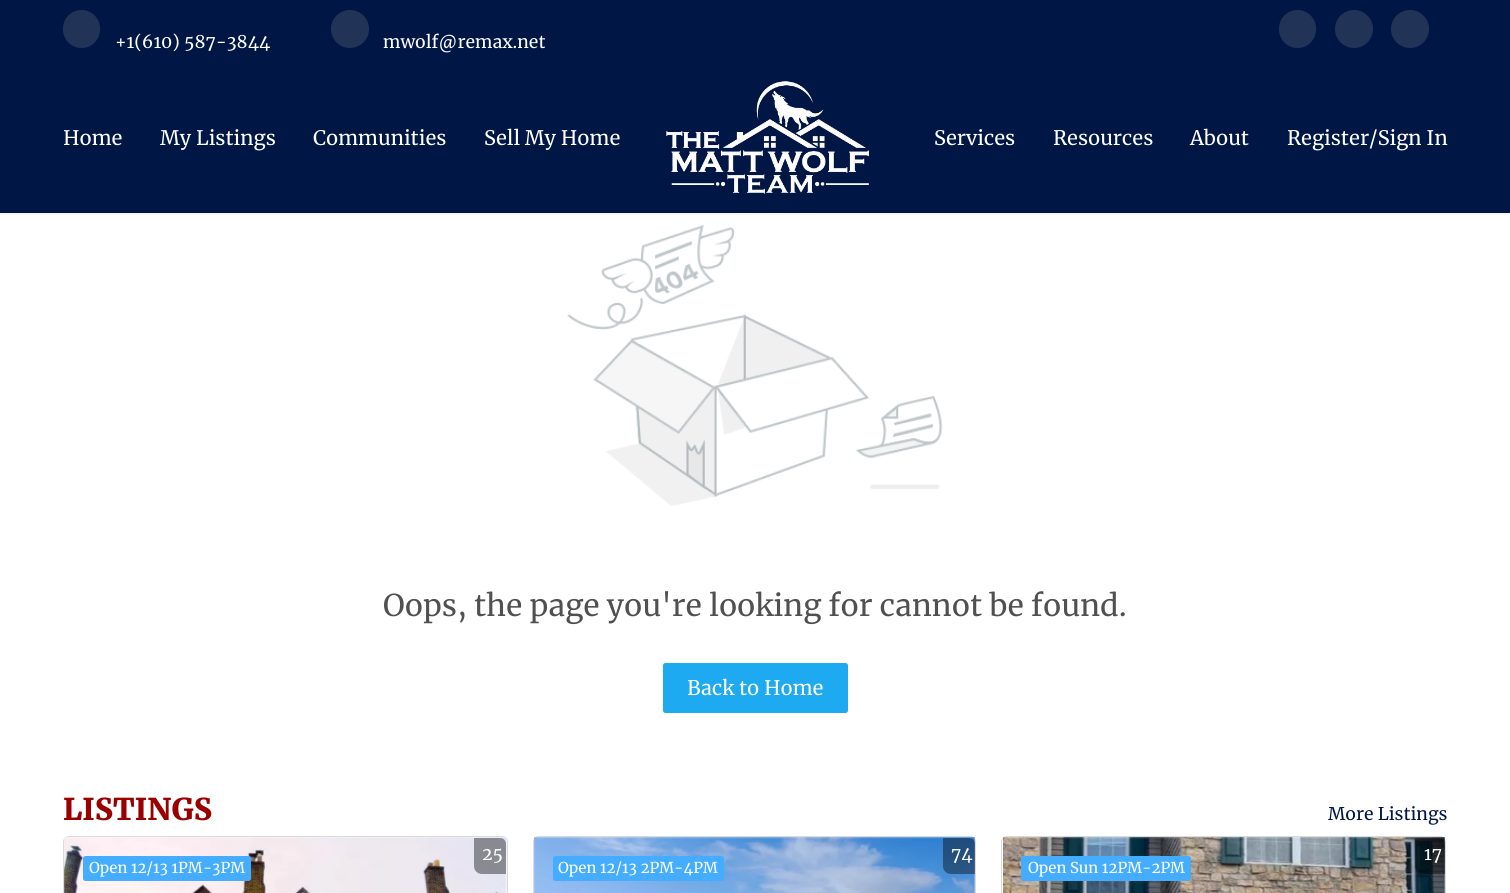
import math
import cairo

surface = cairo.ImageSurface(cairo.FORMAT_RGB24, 1510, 893)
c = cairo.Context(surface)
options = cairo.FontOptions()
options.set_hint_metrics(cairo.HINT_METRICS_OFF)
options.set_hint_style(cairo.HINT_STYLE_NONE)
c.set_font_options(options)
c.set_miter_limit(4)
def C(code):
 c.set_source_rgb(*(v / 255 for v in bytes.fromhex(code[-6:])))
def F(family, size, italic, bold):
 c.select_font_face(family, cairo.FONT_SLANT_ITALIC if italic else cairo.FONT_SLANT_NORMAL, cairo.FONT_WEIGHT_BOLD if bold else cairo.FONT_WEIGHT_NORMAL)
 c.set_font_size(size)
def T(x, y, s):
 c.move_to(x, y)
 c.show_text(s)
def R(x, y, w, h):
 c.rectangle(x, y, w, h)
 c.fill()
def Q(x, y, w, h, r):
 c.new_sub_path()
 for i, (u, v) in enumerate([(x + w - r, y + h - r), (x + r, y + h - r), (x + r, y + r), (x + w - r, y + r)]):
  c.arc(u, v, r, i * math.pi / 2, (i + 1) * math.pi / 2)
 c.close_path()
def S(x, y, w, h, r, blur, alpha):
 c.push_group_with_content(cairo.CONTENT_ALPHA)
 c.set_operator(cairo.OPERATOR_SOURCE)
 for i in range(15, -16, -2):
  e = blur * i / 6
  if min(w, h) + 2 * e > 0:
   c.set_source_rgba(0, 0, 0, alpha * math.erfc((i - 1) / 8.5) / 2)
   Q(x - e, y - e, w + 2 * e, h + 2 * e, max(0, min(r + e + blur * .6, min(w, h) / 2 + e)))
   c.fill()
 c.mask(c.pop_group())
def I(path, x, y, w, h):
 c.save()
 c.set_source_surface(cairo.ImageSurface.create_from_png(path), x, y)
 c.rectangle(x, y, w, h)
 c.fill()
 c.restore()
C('ffffff')
c.paint()
C('000000')
S(-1,-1,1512,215,0,1,.05)
C('001644')
R(0,0,1510,213)
C('223358')
Q(63,10,37,38,18.5)
c.fill()
F('Merriweather',17.5,0,0)
C('ffffff')
T(115,48,'+1(610) 587-3844')
C('223358')
c.new_path()
c.arc(350,29,19,0,2 * math.pi)
c.fill()
C('ffffff')
T(383,48,'mwolf@remax.net')
C('223358')
Q(1279,10,37,38,18.5)
c.fill()
c.arc(1354,29,19,0,2 * math.pi)
c.fill()
c.arc(1410,29,19,0,2 * math.pi)
c.fill()
F('Merriweather',20,0,0)
C('ffffff')
T(63,145,'Home')
T(160,145,'My Listings')
T(313,145,'Communities')
T(484,145,'Sell My Home')
I('1.png',666,81,203,113)
T(934,145,'Services')
T(1053,145,'Resources')
T(1190,145,'About')
T(1287,145,'Register/Sign In')
I('2.png',567,225,376,281)
F('Merriweather',30,0,0)
C('505050')
T(383,616,'Oops, the page you\'re looking for cannot be found.')
C('1daaf0')
Q(663,663,185,50,2.5)
c.fill()
F('Merriweather',20,0,0)
C('ffffff')
T(687,695,'Back to Home')
F('Merriweather Black',30,0,0)
C('9a0000')
T(63,820,'LISTINGS')
F('Merriweather',17.5,0,0)
C('001644')
T(1328,820,'More Listings')
Q(63.5,836.5,444,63,5.5)
C('dadada')
c.set_line_width(1)
c.stroke()
I('3.png',64,837,443,56)
c.set_source_rgba(0,0,0,0.4)
c.new_path()
c.move_to(474,838)
c.line_to(500,838)
c.curve_to(503.5,838,506,840.5,506,844)
c.line_to(506,874)
c.line_to(482,874)
c.curve_to(477.5,874,474,870.5,474,866)
c.close_path()
c.fill()
C('ffffff')
T(482,860,'25')
C('45adff')
Q(83,856,168,25,2.5)
c.fill()
F('Merriweather',15,0,0)
C('ffffff')
T(89,873,'Open 12/13 1PM-3PM')
Q(533.5,836.5,442,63,5.5)
C('dadada')
c.stroke()
I('4.png',534,837,441,56)
c.set_source_rgba(0,0,0,0.4)
c.new_path()
c.move_to(943,838)
c.line_to(969,838)
c.curve_to(972.5,838,975,840.5,975,844)
c.line_to(975,874)
c.line_to(951,874)
c.curve_to(946.5,874,943,870.5,943,866)
c.close_path()
c.fill()
F('Merriweather',17.5,0,0)
C('ffffff')
T(951,860,'74')
C('45adff')
Q(553,856,171,25,2.5)
c.fill()
F('Merriweather',15,0,0)
C('ffffff')
T(558,873,'Open 12/13 2PM-4PM')
Q(1001.5,836.5,444,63,5.5)
C('dadada')
c.stroke()
I('5.png',1003,837,442,56)
c.set_source_rgba(0,0,0,0.4)
c.new_path()
c.move_to(1415,838)
c.line_to(1439,838)
c.curve_to(1442.5,838,1445,840.5,1445,844)
c.line_to(1445,874)
c.line_to(1423,874)
c.curve_to(1418.5,874,1415,870.5,1415,866)
c.close_path()
c.fill()
F('Merriweather',17.5,0,0)
C('ffffff')
T(1424,860,'17')
C('45adff')
Q(1021,856,170,25,2.5)
c.fill()
F('Merriweather',15,0,0)
C('ffffff')
T(1028,873,'Open Sun 12PM-2PM')
surface.write_to_png('o.png')
